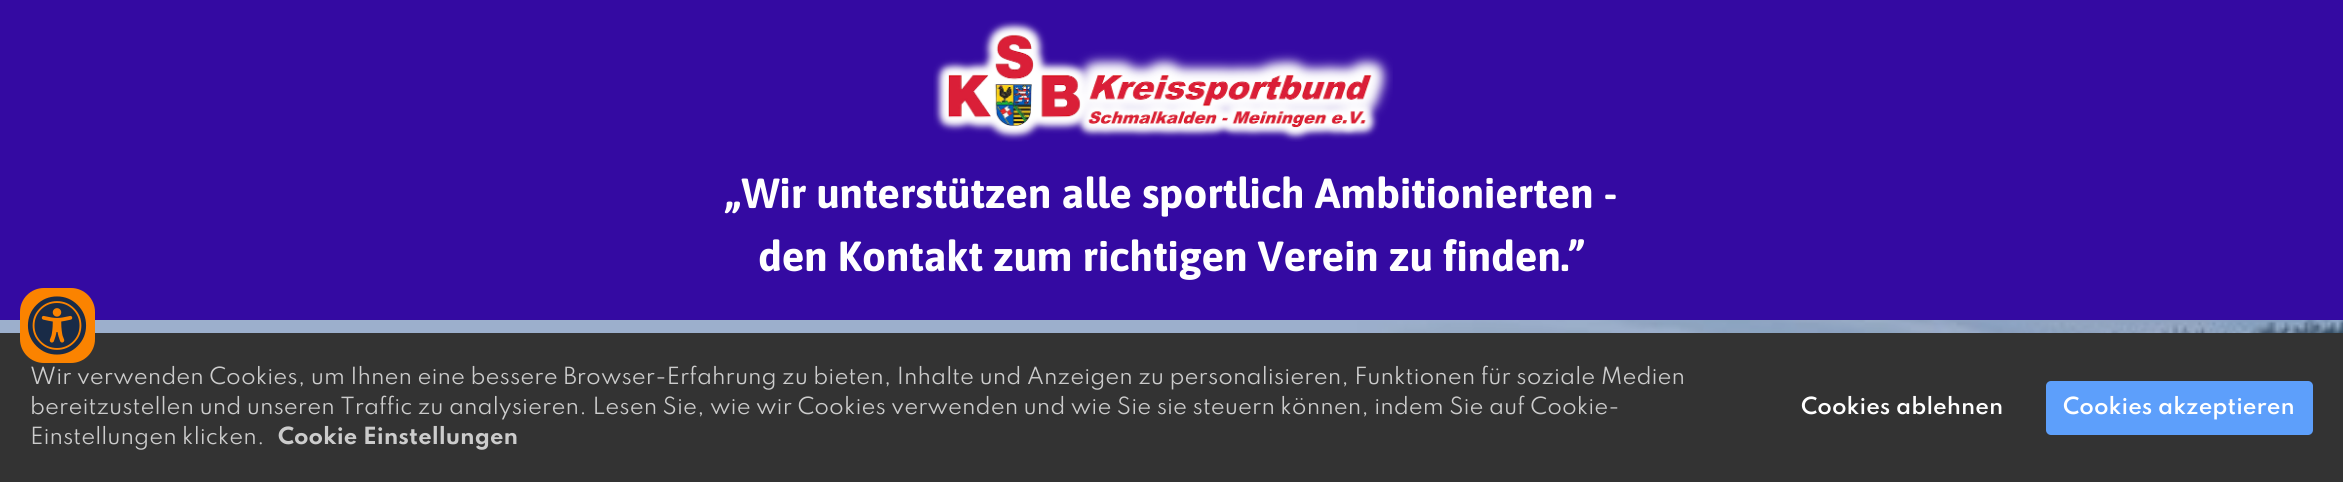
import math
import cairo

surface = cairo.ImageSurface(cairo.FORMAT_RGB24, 2343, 482)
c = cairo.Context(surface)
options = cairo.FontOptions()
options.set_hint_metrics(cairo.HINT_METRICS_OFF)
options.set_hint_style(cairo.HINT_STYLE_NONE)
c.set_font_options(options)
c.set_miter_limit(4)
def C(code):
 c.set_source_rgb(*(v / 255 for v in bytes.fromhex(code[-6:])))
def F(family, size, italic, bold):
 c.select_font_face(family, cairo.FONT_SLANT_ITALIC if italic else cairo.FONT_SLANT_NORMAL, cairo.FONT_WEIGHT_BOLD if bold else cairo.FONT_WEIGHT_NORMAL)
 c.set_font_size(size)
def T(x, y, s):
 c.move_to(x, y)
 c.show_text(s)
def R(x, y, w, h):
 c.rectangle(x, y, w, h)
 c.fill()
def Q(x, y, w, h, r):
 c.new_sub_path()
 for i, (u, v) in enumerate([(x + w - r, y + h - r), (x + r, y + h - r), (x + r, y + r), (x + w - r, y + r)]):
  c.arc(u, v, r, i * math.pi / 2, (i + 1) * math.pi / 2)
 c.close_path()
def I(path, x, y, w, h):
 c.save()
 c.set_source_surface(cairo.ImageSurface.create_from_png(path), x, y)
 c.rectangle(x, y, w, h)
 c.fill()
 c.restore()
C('ffffff')
c.paint()
I('1.png',783,320,1560,13)
C('340aa2')
R(0,0,2343,320)
I('2.png',933,20,460,122)
F('Asap',42,0,1)
C('ffffff')
T(725,208,'„Wir unterstützen alle sportlich Ambitionierten -')
T(758,271,'den Kontakt zum richtigen Verein zu finden.”')
c.set_source_rgba(0.031,0.216,0.502,0.4)
R(0,320,2343,13)
C('333333')
R(0,333,2343,149)
C('fb8300')
Q(20,288,75,75,24)
c.fill()
I('3.png',27,296,60,59)
F('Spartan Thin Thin',21,0,0)
C('cccccc')
T(30,384,'Wir verwenden Cookies, um Ihnen eine bessere Browser-Erfahrung zu bieten, Inhalte und Anzeigen zu personalisieren, Funktionen für soziale Medien')
T(30,414,'bereitzustellen und unseren Traffic zu analysieren. Lesen Sie, wie wir Cookies verwenden und wie Sie sie steuern können, indem Sie auf Cookie-')
T(30,444,'Einstellungen klicken.')
F('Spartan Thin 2 Thin',21,0,0)
T(278,444,'Cookie Einstellungen')
F('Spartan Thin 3 Thin',21,0,0)
C('ffffff')
T(1801,414,'Cookies ablehnen')
C('5d9ffb')
Q(2046,381,267,54,5)
c.fill()
C('ffffff')
T(2063,414,'Cookies akzeptieren')
surface.write_to_png('o.png')
